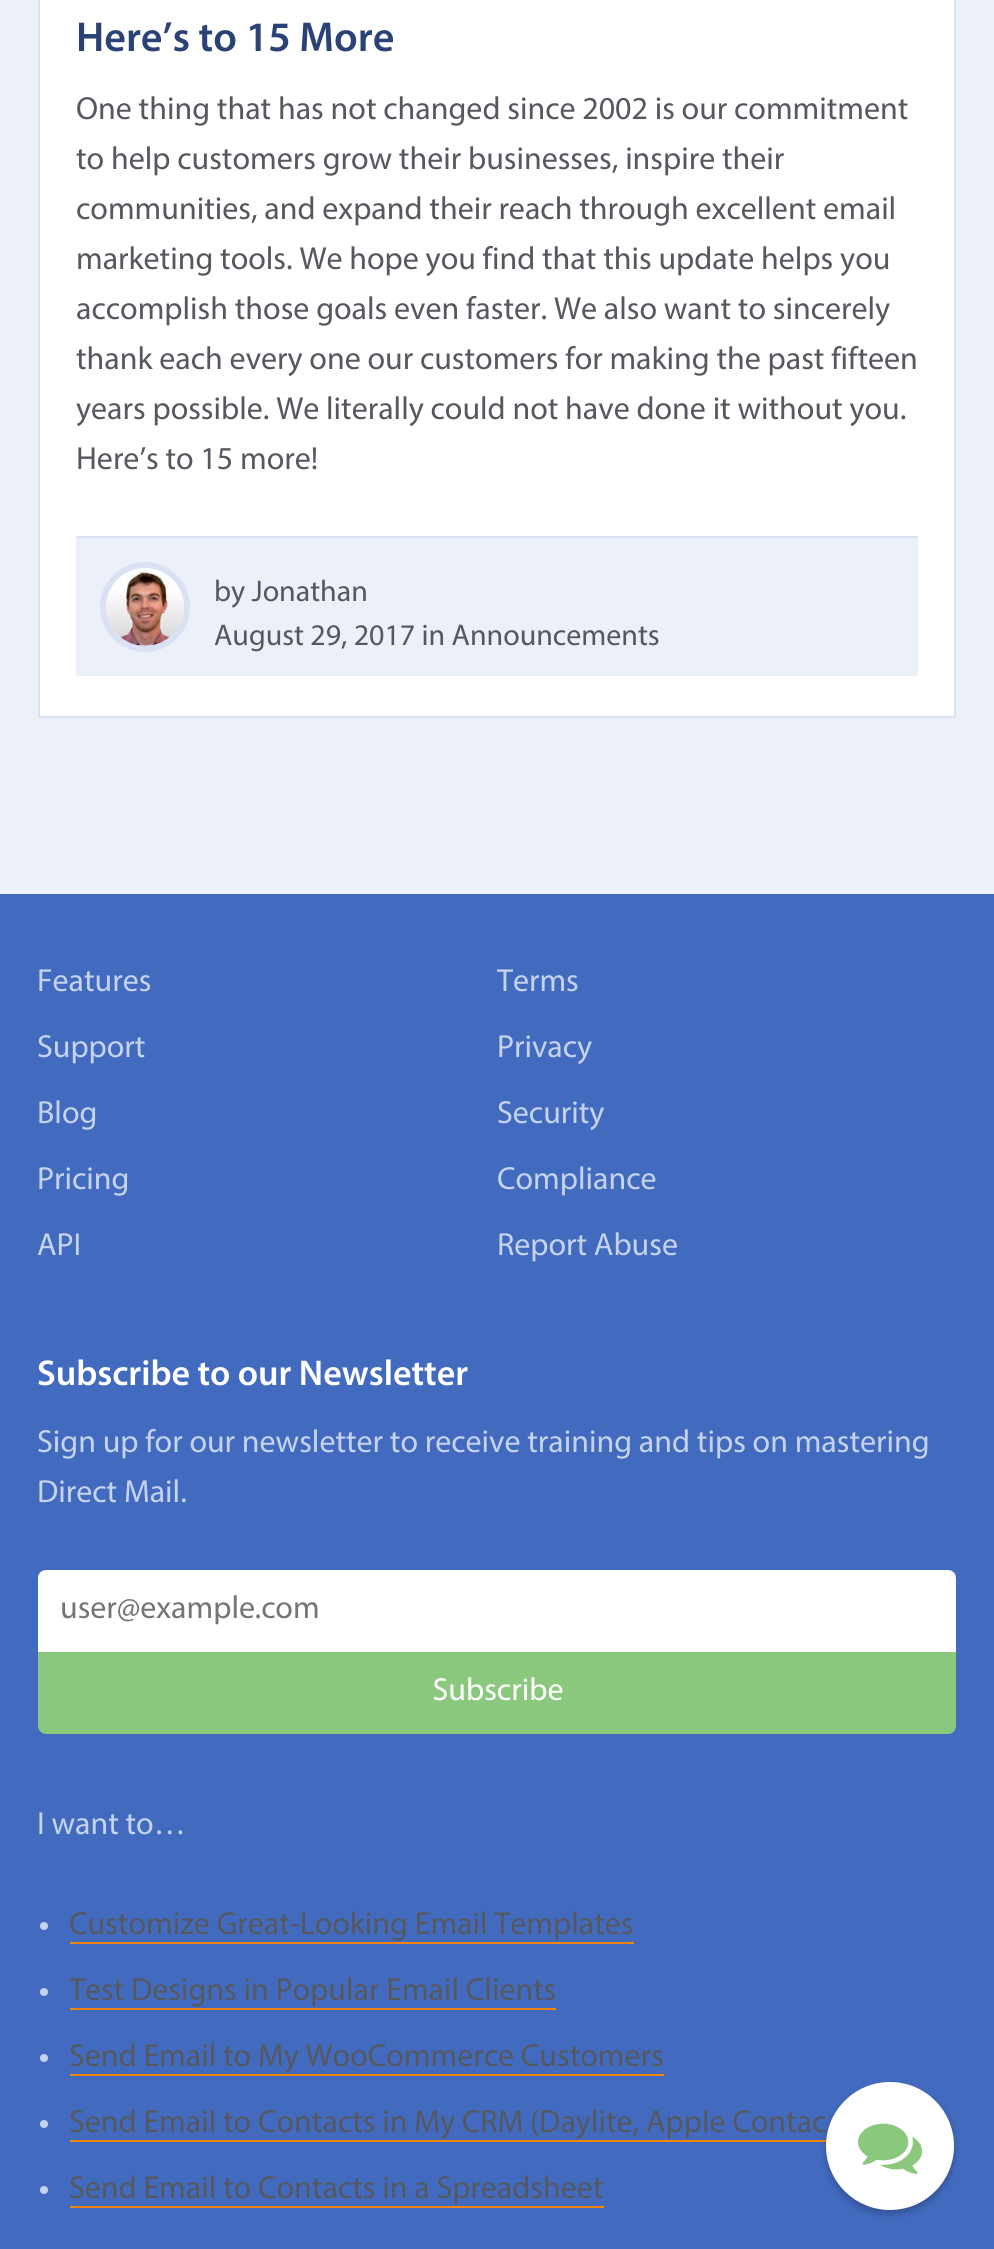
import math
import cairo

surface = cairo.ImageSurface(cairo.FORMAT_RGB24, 994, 2249)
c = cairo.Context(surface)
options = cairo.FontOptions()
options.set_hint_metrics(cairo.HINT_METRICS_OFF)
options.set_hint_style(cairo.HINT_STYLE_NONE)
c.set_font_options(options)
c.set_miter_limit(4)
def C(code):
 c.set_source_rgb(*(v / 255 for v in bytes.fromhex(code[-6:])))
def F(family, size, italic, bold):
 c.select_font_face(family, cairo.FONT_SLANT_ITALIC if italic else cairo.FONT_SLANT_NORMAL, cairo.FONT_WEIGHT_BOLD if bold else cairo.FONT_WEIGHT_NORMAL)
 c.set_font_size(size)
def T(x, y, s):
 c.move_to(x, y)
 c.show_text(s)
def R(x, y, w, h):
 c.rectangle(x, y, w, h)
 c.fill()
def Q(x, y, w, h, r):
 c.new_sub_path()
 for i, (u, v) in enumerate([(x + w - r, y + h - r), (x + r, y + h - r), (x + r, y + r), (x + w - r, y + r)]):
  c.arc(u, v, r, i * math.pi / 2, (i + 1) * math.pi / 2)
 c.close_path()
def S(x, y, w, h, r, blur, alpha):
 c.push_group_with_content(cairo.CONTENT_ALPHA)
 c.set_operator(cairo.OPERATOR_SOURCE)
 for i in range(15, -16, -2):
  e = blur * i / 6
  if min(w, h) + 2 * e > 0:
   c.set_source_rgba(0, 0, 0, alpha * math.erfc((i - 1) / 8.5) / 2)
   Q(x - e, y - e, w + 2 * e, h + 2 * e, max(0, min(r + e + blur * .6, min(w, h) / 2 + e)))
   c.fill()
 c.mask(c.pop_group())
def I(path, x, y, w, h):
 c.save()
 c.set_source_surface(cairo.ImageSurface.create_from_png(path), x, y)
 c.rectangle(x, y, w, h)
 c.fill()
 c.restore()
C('426bc0')
c.paint()
C('ecf0f9')
R(0,0,994,894)
C('ffffff')
c.rectangle(39,-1,916,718)
c.fill_preserve()
C('d9e1f2')
c.stroke()
F('Myriad SemiBold',42,0,0)
C('2a4276')
T(76,51,'Here’s to 15 More')
F('myriad',32,0,0)
C('56585f')
T(76,119,'One thing that has not changed since 2002 is our commitment')
T(76,169,'to help customers grow their businesses, inspire their')
T(76,219,'communities, and expand their reach through excellent email')
T(76,269,'marketing tools. We hope you find that this update helps you')
T(76,319,'accomplish those goals even faster. We also want to sincerely')
T(76,369,'thank each every one our customers for making the past fifteen')
T(76,419,'years possible. We literally could not have done it without you.')
T(76,469,'Here’s to 15 more!')
C('ecf0f9')
R(76,538,842,138)
C('d9e1f2')
R(76,536,842,2)
c.new_path()
c.arc(145,607,42,0,2 * math.pi)
c.set_line_width(6)
c.stroke()
I('1.png',106,568,78,78)
F('myriad',30,0,0)
C('56585f')
T(214,601,'by Jonathan')
T(214,645,'August 29, 2017 in Announcements')
F('myriad',32,0,0)
C('c6d3ec')
T(37,991,'Features')
T(37,1057,'Support')
T(37,1123,'Blog')
T(37,1189,'Pricing')
T(37,1255,'API')
T(497,991,'Terms')
T(497,1057,'Privacy')
T(497,1123,'Security')
T(497,1189,'Compliance')
T(497,1255,'Report Abuse')
F('Myriad SemiBold',36,0,0)
C('ffffff')
T(37,1385,'Subscribe to our Newsletter')
F('myriad',32,0,0)
C('c6d3ec')
T(37,1452,'Sign up for our newsletter to receive training and tips on mastering')
T(37,1502,'Direct Mail.')
I('2.png',38,1570,918,164)
T(37,1834,'I want to…')
c.new_path()
c.arc(44,1926,4,0,2 * math.pi)
c.fill()
C('56585f')
T(69,1934,'Customize Great-Looking Email Templates')
C('f3840c')
R(70,1942,564,2)
C('c6d3ec')
c.new_path()
c.arc(44,1992,4,0,2 * math.pi)
c.fill()
C('56585f')
T(69,2000,'Test Designs in Popular Email Clients')
C('f3840c')
R(70,2008,486,2)
C('c6d3ec')
c.new_path()
c.arc(44,2058,4,0,2 * math.pi)
c.fill()
C('56585f')
T(69,2066,'Send Email to My WooCommerce Customers')
C('f3840c')
R(70,2074,594,2)
C('c6d3ec')
c.new_path()
c.arc(44,2124,4,0,2 * math.pi)
c.fill()
C('56585f')
T(69,2132,'Send Email to Contacts in My CRM (Daylite, Apple Contac')
C('f3840c')
R(70,2140,757,2)
C('c6d3ec')
c.new_path()
c.arc(44,2190,4,0,2 * math.pi)
c.fill()
C('56585f')
T(69,2198,'Send Email to Contacts in a Spreadsheet')
C('f3840c')
R(70,2206,534,2)
C('000000')
S(826,2086,128,128,64,4,.25)
C('ffffff')
c.arc(890,2146,64,0,2 * math.pi)
c.fill()
I('3.png',858,2123,64,51)
surface.write_to_png('o.png')
